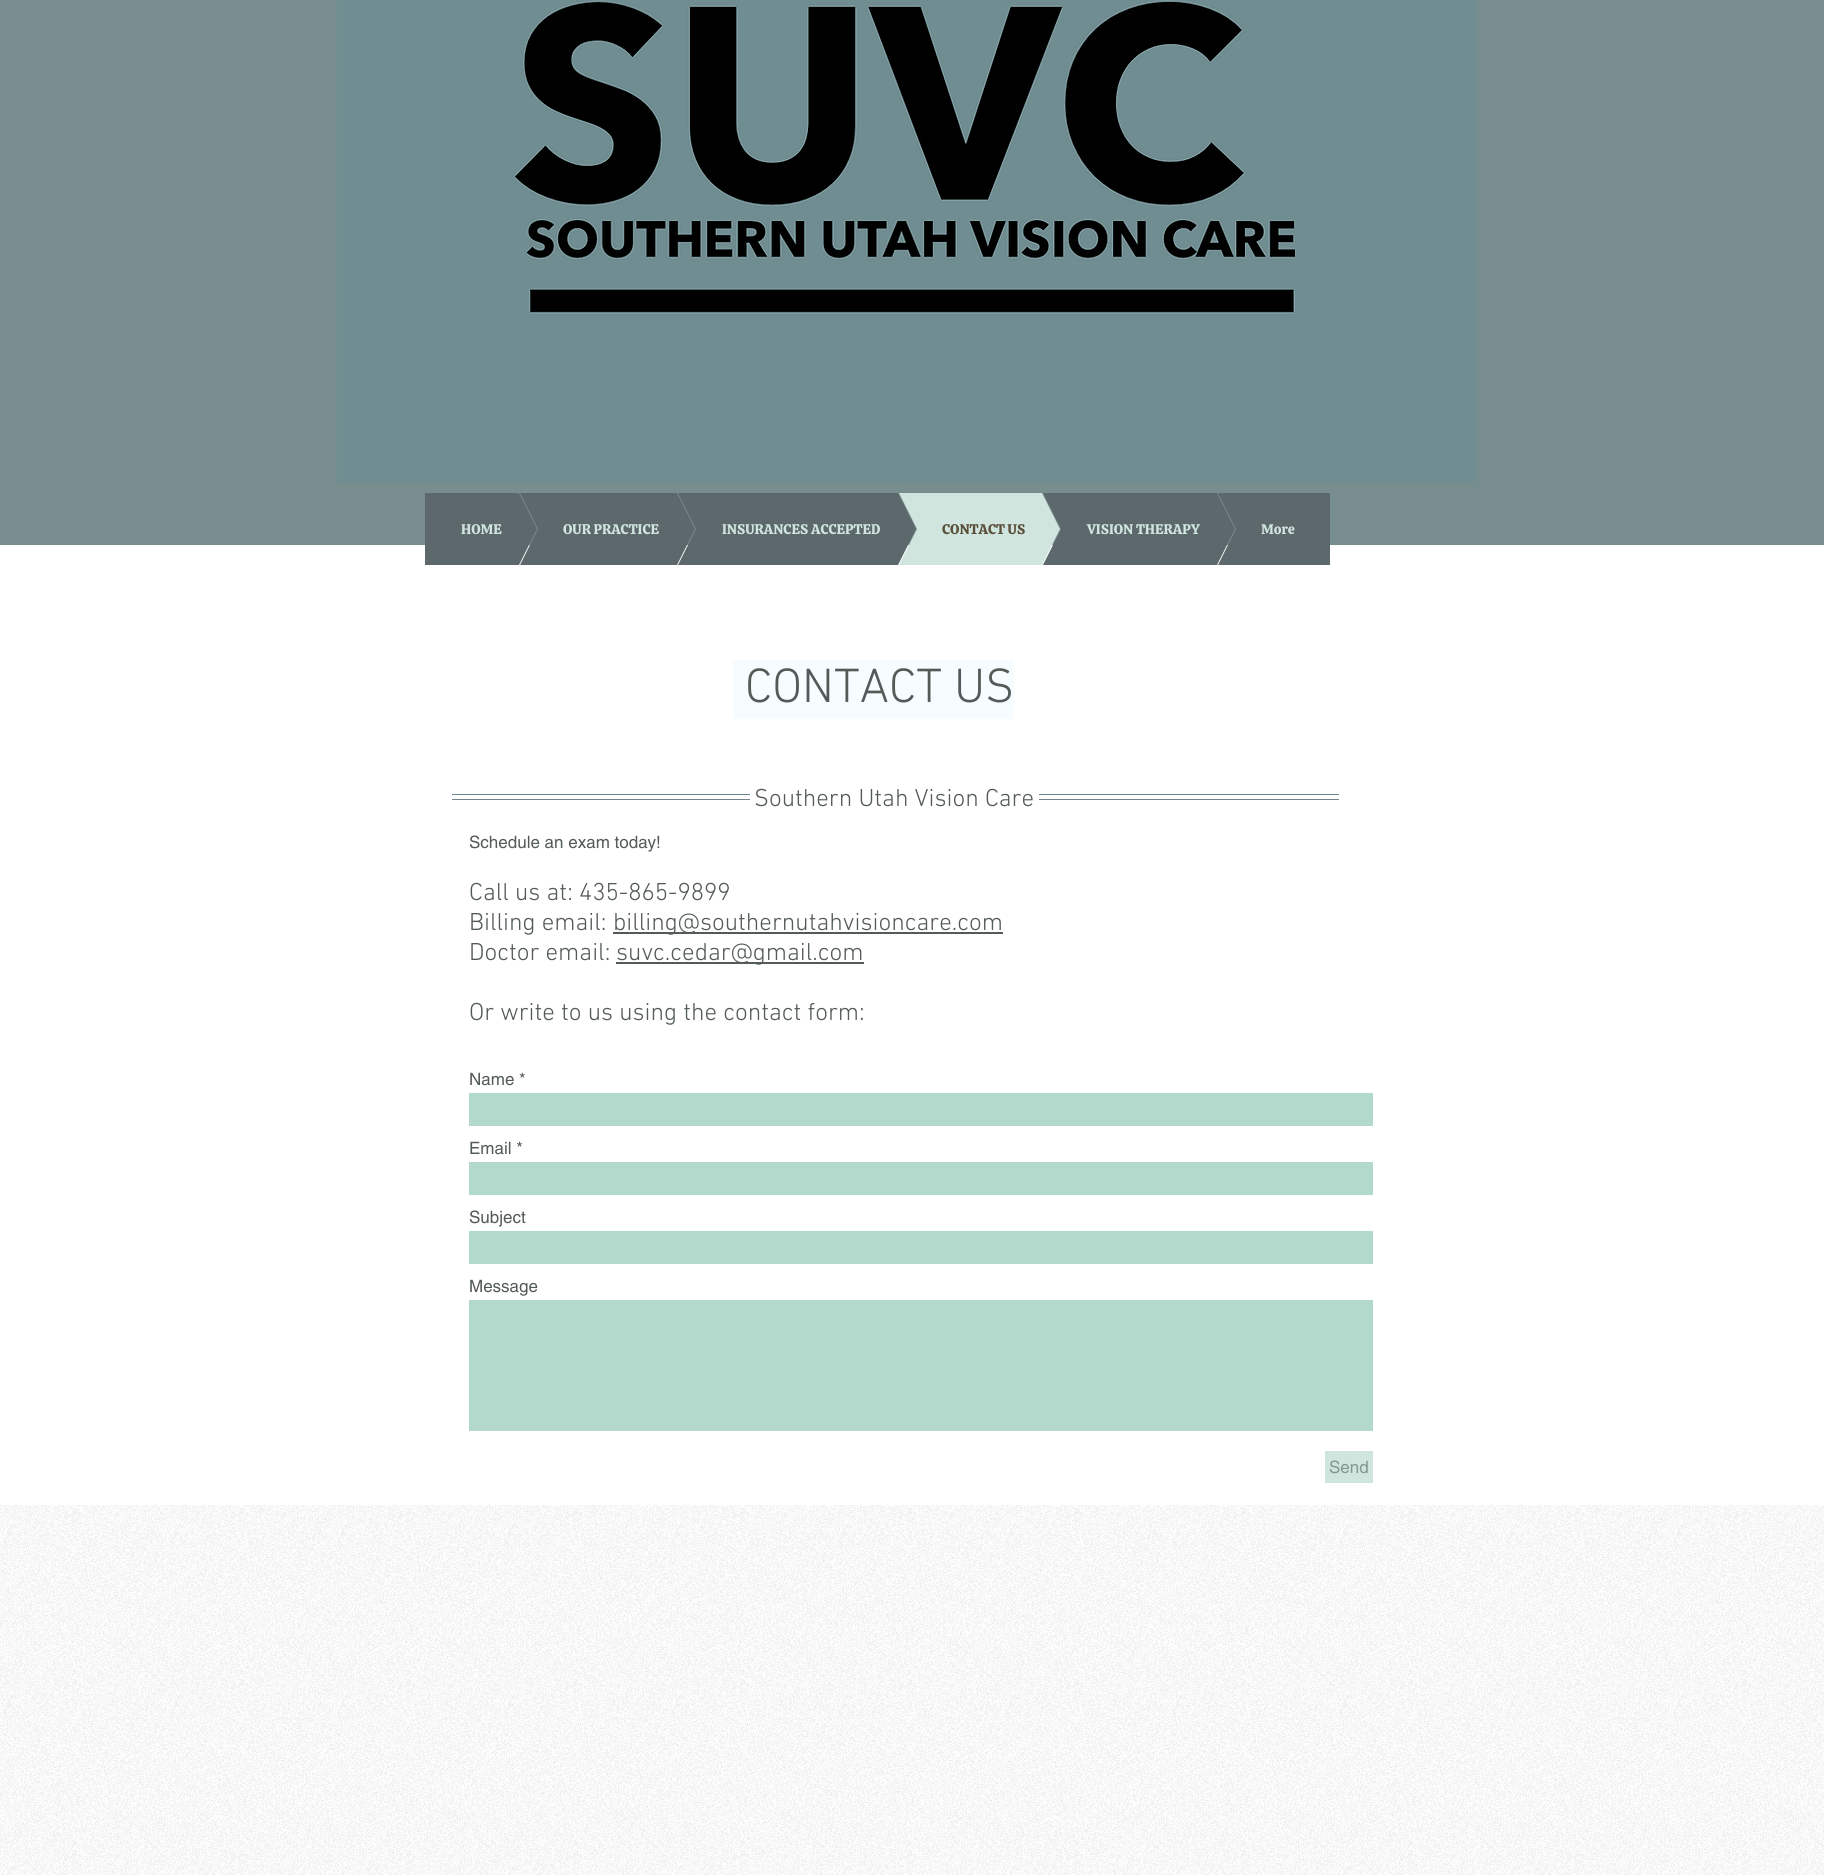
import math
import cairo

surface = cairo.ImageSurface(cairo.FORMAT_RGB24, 1824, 1875)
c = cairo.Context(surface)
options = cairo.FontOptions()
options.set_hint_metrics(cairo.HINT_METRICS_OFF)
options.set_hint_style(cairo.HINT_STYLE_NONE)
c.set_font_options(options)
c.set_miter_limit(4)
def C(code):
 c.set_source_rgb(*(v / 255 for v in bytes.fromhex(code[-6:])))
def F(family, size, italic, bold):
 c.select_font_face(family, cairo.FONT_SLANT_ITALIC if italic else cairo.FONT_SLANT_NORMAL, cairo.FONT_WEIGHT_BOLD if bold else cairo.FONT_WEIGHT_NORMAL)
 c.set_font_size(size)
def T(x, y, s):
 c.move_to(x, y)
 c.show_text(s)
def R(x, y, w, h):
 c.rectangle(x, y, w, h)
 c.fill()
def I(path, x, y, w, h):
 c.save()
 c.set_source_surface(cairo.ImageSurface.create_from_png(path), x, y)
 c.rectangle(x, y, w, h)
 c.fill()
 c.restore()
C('ffffff')
c.paint()
C('788d8d')
R(0,0,1824,545)
I('1.png',337,0,1140,482)
C('5c686c')
R(425,493,42,72)
c.save()
c.rectangle(467,493,70,72)
c.clip()
c.new_path()
c.move_to(537,529)
c.line_to(467,529)
c.line_to(467,389)
c.close_path()
c.fill()
c.new_path()
c.move_to(467,529)
c.line_to(537,529)
c.line_to(467,669)
c.close_path()
c.fill()
c.restore()
F('Calistoga',14,0,0)
C('d0e5de')
T(461,534,'HOME')
c.save()
c.rectangle(468,493,70,72)
c.clip()
C('5c686c')
c.new_path()
c.move_to(468,389)
c.line_to(538,389)
c.line_to(538,529)
c.close_path()
c.fill()
c.new_path()
c.move_to(538,669)
c.line_to(468,669)
c.line_to(538,529)
c.close_path()
c.fill()
c.restore()
C('5c686c')
R(538,493,87,72)
c.save()
c.rectangle(625,493,70,72)
c.clip()
c.new_path()
c.move_to(695,529)
c.line_to(625,529)
c.line_to(625,389)
c.close_path()
c.fill()
c.new_path()
c.move_to(625,529)
c.line_to(695,529)
c.line_to(625,669)
c.close_path()
c.fill()
c.restore()
C('d0e5de')
T(563,534,'OUR PRACTICE')
c.save()
c.rectangle(626,493,70,72)
c.clip()
C('5c686c')
c.new_path()
c.move_to(626,389)
c.line_to(696,389)
c.line_to(696,529)
c.close_path()
c.fill()
c.new_path()
c.move_to(696,669)
c.line_to(626,669)
c.line_to(696,529)
c.close_path()
c.fill()
c.restore()
C('5c686c')
R(696,493,150,72)
c.save()
c.rectangle(846,493,70,72)
c.clip()
c.new_path()
c.move_to(916,529)
c.line_to(846,529)
c.line_to(846,389)
c.close_path()
c.fill()
c.new_path()
c.move_to(846,529)
c.line_to(916,529)
c.line_to(846,669)
c.close_path()
c.fill()
c.restore()
C('d0e5de')
T(722,534,'INSURANCES ACCEPTED')
c.save()
c.rectangle(847,493,70,72)
c.clip()
c.new_path()
c.move_to(847,389)
c.line_to(917,389)
c.line_to(917,529)
c.close_path()
c.fill()
c.new_path()
c.move_to(917,669)
c.line_to(847,669)
c.line_to(917,529)
c.close_path()
c.fill()
c.restore()
R(917,493,73,72)
c.save()
c.rectangle(990,493,70,72)
c.clip()
c.new_path()
c.move_to(1060,529)
c.line_to(990,529)
c.line_to(990,389)
c.close_path()
c.fill()
c.new_path()
c.move_to(990,529)
c.line_to(1060,529)
c.line_to(990,669)
c.close_path()
c.fill()
c.restore()
C('5a4f3a')
T(942,534,'CONTACT US')
c.save()
c.rectangle(991,493,70,72)
c.clip()
C('5c686c')
c.new_path()
c.move_to(991,389)
c.line_to(1061,389)
c.line_to(1061,529)
c.close_path()
c.fill()
c.new_path()
c.move_to(1061,669)
c.line_to(991,669)
c.line_to(1061,529)
c.close_path()
c.fill()
c.restore()
C('5c686c')
R(1061,493,104,72)
c.save()
c.rectangle(1165,493,70,72)
c.clip()
c.new_path()
c.move_to(1235,529)
c.line_to(1165,529)
c.line_to(1165,389)
c.close_path()
c.fill()
c.new_path()
c.move_to(1165,529)
c.line_to(1235,529)
c.line_to(1165,669)
c.close_path()
c.fill()
c.restore()
C('d0e5de')
T(1087,534,'VISION THERAPY')
c.save()
c.rectangle(1166,493,70,72)
c.clip()
C('5c686c')
c.new_path()
c.move_to(1166,389)
c.line_to(1236,389)
c.line_to(1236,529)
c.close_path()
c.fill()
c.new_path()
c.move_to(1236,669)
c.line_to(1166,669)
c.line_to(1236,529)
c.close_path()
c.fill()
c.restore()
C('5c686c')
R(1236,493,94,72)
C('d0e5de')
T(1261,534,'More')
C('f6fcff')
R(733,660,281,59)
F('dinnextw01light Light',49,0,0)
C('535b58')
T(745,702,'CONTACT US')
C('72858c')
R(452,794,298,1)
R(452,799,298,1)
F('dinnextw01light Light',25,0,0)
C('535b58')
T(754,806,'Southern Utah Vision Care')
C('72858c')
R(1039,794,300,1)
R(1039,799,300,1)
F('helvetica',17,0,0)
C('535b58')
T(469,848,'Schedule an exam today!')
F('dinnextw01light Light',25,0,0)
T(469,900,'Call us at: 435-865-9899')
T(469,930,'Billing email:')
R(613,932,390,2)
T(613,930,'billing@southernutahvisioncare.com')
T(469,960,'Doctor email:')
R(616,962,248,2)
T(616,960,'suvc.cedar@gmail.com')
T(469,1020,'Or write to us using the contact form:')
F('helvetica',17,0,0)
T(469,1085,'Name *')
C('b3d9cc')
R(469,1093,904,33)
C('535b58')
T(469,1154,'Email *')
C('b3d9cc')
R(469,1162,904,33)
C('535b58')
T(469,1223,'Subject')
C('b3d9cc')
R(469,1231,904,33)
C('535b58')
T(469,1292,'Message')
C('b3d9cc')
R(469,1300,904,131)
C('d0e5de')
R(1325,1451,48,32)
C('809a91')
T(1329,1473,'Send')
I('2.png',0,1505,1824,370)
surface.write_to_png('o.png')
